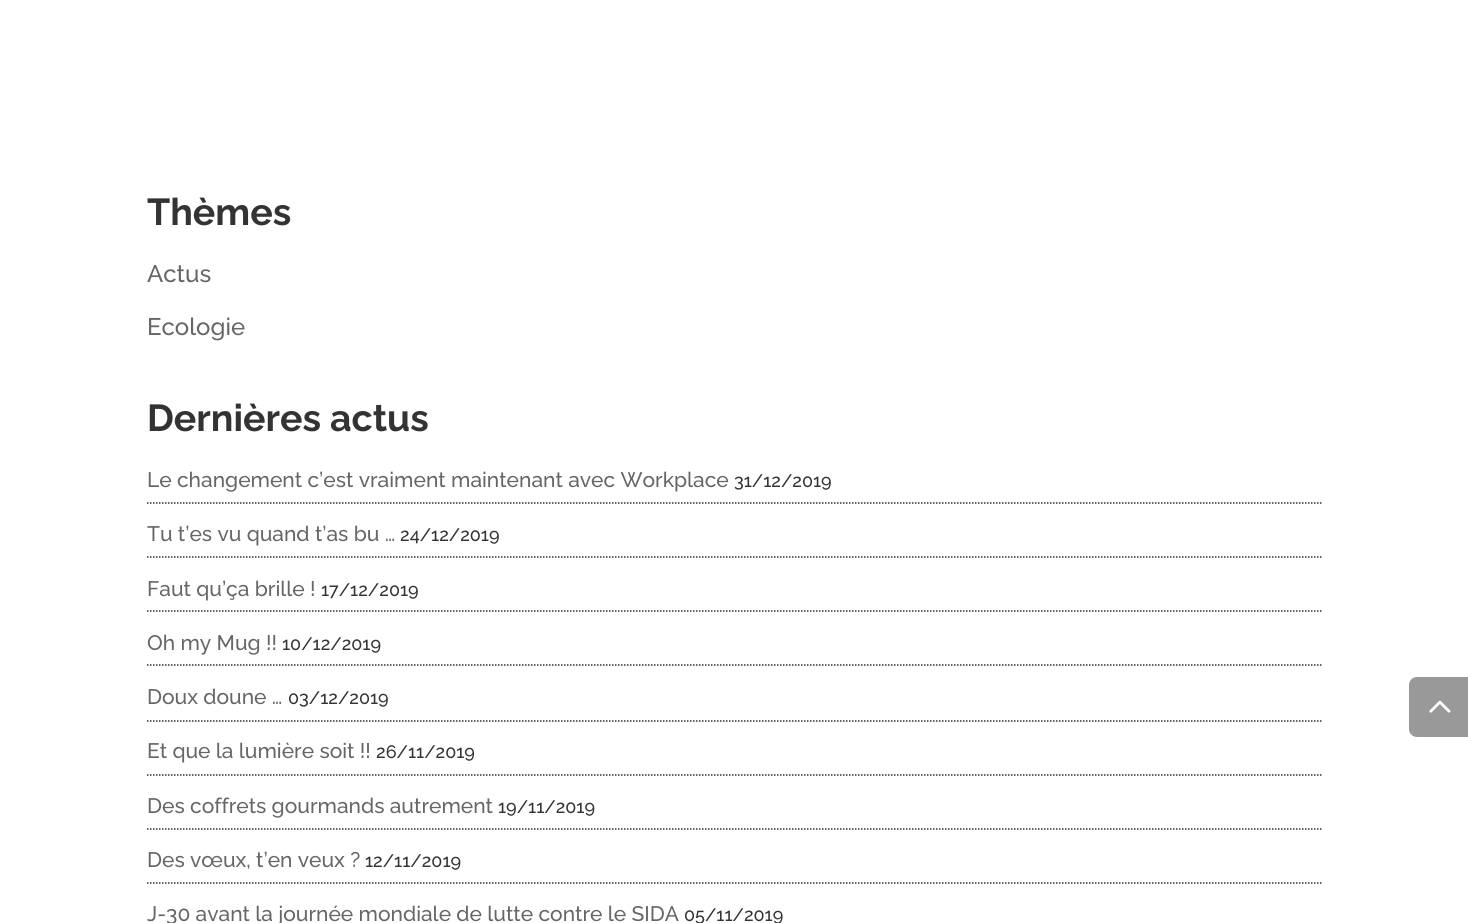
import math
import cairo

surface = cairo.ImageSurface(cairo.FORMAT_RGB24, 1468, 923)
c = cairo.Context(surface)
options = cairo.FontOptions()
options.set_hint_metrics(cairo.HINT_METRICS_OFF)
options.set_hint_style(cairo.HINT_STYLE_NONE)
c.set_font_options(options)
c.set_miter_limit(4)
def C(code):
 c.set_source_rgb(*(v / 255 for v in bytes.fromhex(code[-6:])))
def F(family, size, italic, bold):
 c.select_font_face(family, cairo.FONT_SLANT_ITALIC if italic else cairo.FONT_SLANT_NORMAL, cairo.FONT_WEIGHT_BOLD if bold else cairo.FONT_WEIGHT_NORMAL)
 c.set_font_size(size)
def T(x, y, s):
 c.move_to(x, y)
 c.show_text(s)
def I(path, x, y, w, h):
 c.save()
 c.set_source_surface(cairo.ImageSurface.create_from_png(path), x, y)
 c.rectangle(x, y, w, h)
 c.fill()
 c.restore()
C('ffffff')
c.paint()
F('Raleway',37.5,0,1)
C('333333')
T(147,225,'Thèmes')
F('Raleway Medium',24,0,0)
C('666666')
T(147,282,'Actus')
T(147,335,'Ecologie')
F('Raleway',37.5,0,1)
C('333333')
T(147,431,'Dernières actus')
c.new_path()
c.move_to(147,503)
c.line_to(1321.5,503)
c.set_line_width(1.5)
c.set_dash([1.5,1.5])
c.stroke()
F('Raleway Medium',21,0,0)
C('666666')
T(147,487,'Le changement c’est vraiment maintenant avec Workplace')
F('Raleway Medium',18,0,0)
C('333333')
T(734,487,'31/12/2019')
c.new_path()
c.move_to(147,557)
c.line_to(1321.5,557)
c.stroke()
F('Raleway Medium',21,0,0)
C('666666')
T(147,541,'Tu t’es vu quand t’as bu …')
F('Raleway Medium',18,0,0)
C('333333')
T(400,541,'24/12/2019')
c.new_path()
c.move_to(147,611)
c.line_to(1321.5,611)
c.stroke()
F('Raleway Medium',21,0,0)
C('666666')
T(147,596,'Faut qu’ça brille !')
F('Raleway Medium',18,0,0)
C('333333')
T(321,596,'17/12/2019')
c.new_path()
c.move_to(147,665)
c.line_to(1321.5,665)
c.stroke()
F('Raleway Medium',21,0,0)
C('666666')
T(147,650,'Oh my Mug !!')
F('Raleway Medium',18,0,0)
C('333333')
T(282,650,'10/12/2019')
c.new_path()
c.move_to(147,721)
c.line_to(1321.5,721)
c.stroke()
F('Raleway Medium',21,0,0)
C('666666')
T(147,704,'Doux doune …')
F('Raleway Medium',18,0,0)
C('333333')
T(288,704,'03/12/2019')
c.new_path()
c.move_to(147,775)
c.line_to(1321.5,775)
c.stroke()
F('Raleway Medium',21,0,0)
C('666666')
T(147,758,'Et que la lumière soit !!')
F('Raleway Medium',18,0,0)
C('333333')
T(376,758,'26/11/2019')
c.new_path()
c.move_to(147,829)
c.line_to(1321.5,829)
c.stroke()
F('Raleway Medium',21,0,0)
C('666666')
T(147,813,'Des coffrets gourmands autrement')
F('Raleway Medium',18,0,0)
C('333333')
T(498,813,'19/11/2019')
c.new_path()
c.move_to(147,883)
c.line_to(1321.5,883)
c.stroke()
F('Raleway Medium',21,0,0)
C('666666')
T(147,867,'Des vœux, t’en veux ?')
F('Raleway Medium',18,0,0)
C('333333')
T(365,867,'12/11/2019')
F('Raleway Medium',21,0,0)
C('666666')
T(147,921,'J-30 avant la journée mondiale de lutte contre le SIDA')
F('Raleway Medium',18,0,0)
C('333333')
T(684,921,'05/11/2019')
C('999999')
c.new_path()
c.move_to(1417,677)
c.line_to(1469,677)
c.line_to(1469,737)
c.line_to(1417,737)
c.curve_to(1412.5,737,1409,733.5,1409,729)
c.line_to(1409,685)
c.curve_to(1409,680.5,1412.5,677,1417,677)
c.close_path()
c.fill()
I('1.png',1429,700,22,13)
surface.write_to_png('o.png')
